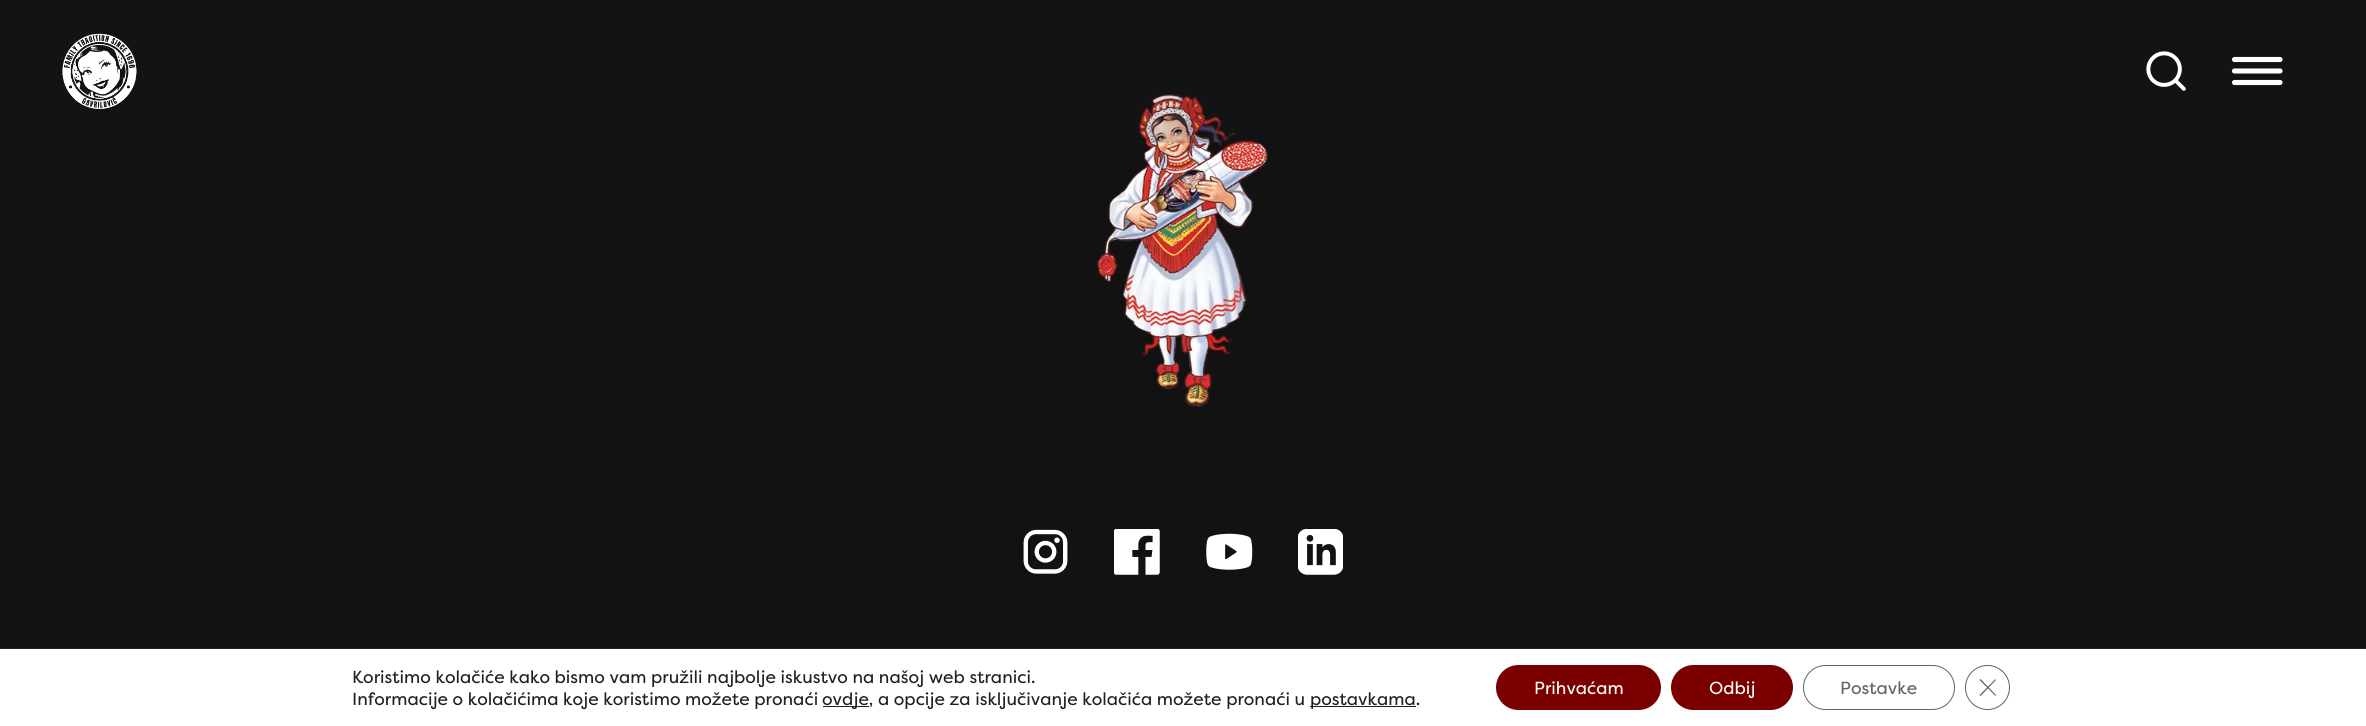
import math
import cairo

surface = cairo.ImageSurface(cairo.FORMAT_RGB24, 2366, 726)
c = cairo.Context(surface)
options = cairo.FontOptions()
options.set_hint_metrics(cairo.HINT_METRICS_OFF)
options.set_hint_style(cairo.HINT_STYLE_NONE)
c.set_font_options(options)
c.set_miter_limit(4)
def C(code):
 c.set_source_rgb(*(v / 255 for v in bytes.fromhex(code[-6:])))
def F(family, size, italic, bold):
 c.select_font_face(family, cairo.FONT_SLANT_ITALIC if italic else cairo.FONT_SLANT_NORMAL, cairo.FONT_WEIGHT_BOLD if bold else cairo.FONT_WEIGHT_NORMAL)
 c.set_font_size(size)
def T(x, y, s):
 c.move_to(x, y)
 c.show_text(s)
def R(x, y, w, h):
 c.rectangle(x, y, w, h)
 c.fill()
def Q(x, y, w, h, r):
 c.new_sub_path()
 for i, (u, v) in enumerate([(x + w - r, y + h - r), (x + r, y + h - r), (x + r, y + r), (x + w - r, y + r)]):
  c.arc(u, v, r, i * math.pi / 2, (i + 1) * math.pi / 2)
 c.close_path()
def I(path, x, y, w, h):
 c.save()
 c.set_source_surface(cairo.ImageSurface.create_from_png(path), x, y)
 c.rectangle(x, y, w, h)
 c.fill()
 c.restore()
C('121212')
c.paint()
I('3.png',1097,93,171,314)
c.set_source_rgba(0.106,0.098,0.141,0.15)
R(0,0,2366,143)
I('1.png',62,33,75,76)
I('2.png',2146,51,40,40)
c.new_path()
c.move_to(2234.5,59.5)
c.line_to(2280,59.5)
c.move_to(2234.5,71)
c.line_to(2280,71)
c.move_to(2234.5,82.5)
c.line_to(2280,82.5)
C('ffffff')
c.set_line_width(5.1)
c.set_line_cap(cairo.LINE_CAP_ROUND)
c.set_line_join(cairo.LINE_JOIN_ROUND)
c.stroke()
I('4.png',1023,529,45,45)
I('5.png',1114,529,46,46)
I('6.png',1206,533,47,37)
I('7.png',1298,529,45,46)
R(0,649,2366,77)
C('202020')
R(0,648,2366,1)
F('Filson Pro',17.5,0,0)
T(352,683,'Koristimo kolačiće kako bismo vam pružili najbolje iskustvo na našoj web stranici.')
T(352,705,'Informacije o kolačićima koje koristimo možete pronaći')
R(823,706,46,1)
T(822,705,'ovdje, a opcije za isključivanje kolačića možete pronaći u')
R(1310,706,106,1)
T(1310,705,'postavkama.')
C('7a0000')
Q(1496,665,165,45,22.5)
c.fill()
C('ffffff')
T(1534,694,'Prihvaćam')
C('7a0000')
Q(1671,665,122,45,22.5)
c.fill()
C('ffffff')
T(1709,694,'Odbij')
Q(1803.5,665.5,151,44,22)
C('636363')
c.set_line_width(1)
c.set_line_cap(cairo.LINE_CAP_BUTT)
c.set_line_join(cairo.LINE_JOIN_MITER)
c.stroke()
T(1840,694,'Postavke')
c.new_path()
c.arc(1987.5,687.5,22,0,2 * math.pi)
C('626262')
c.stroke()
c.new_path()
c.move_to(1995.5,679)
c.line_to(1996,680)
c.line_to(1980.5,696)
c.line_to(1979.5,695)
c.close_path()
c.fill()
c.new_path()
c.move_to(1979.5,680)
c.line_to(1980.5,679)
c.line_to(1996,695)
c.line_to(1995.5,696)
c.close_path()
c.fill()
surface.write_to_png('o.png')
